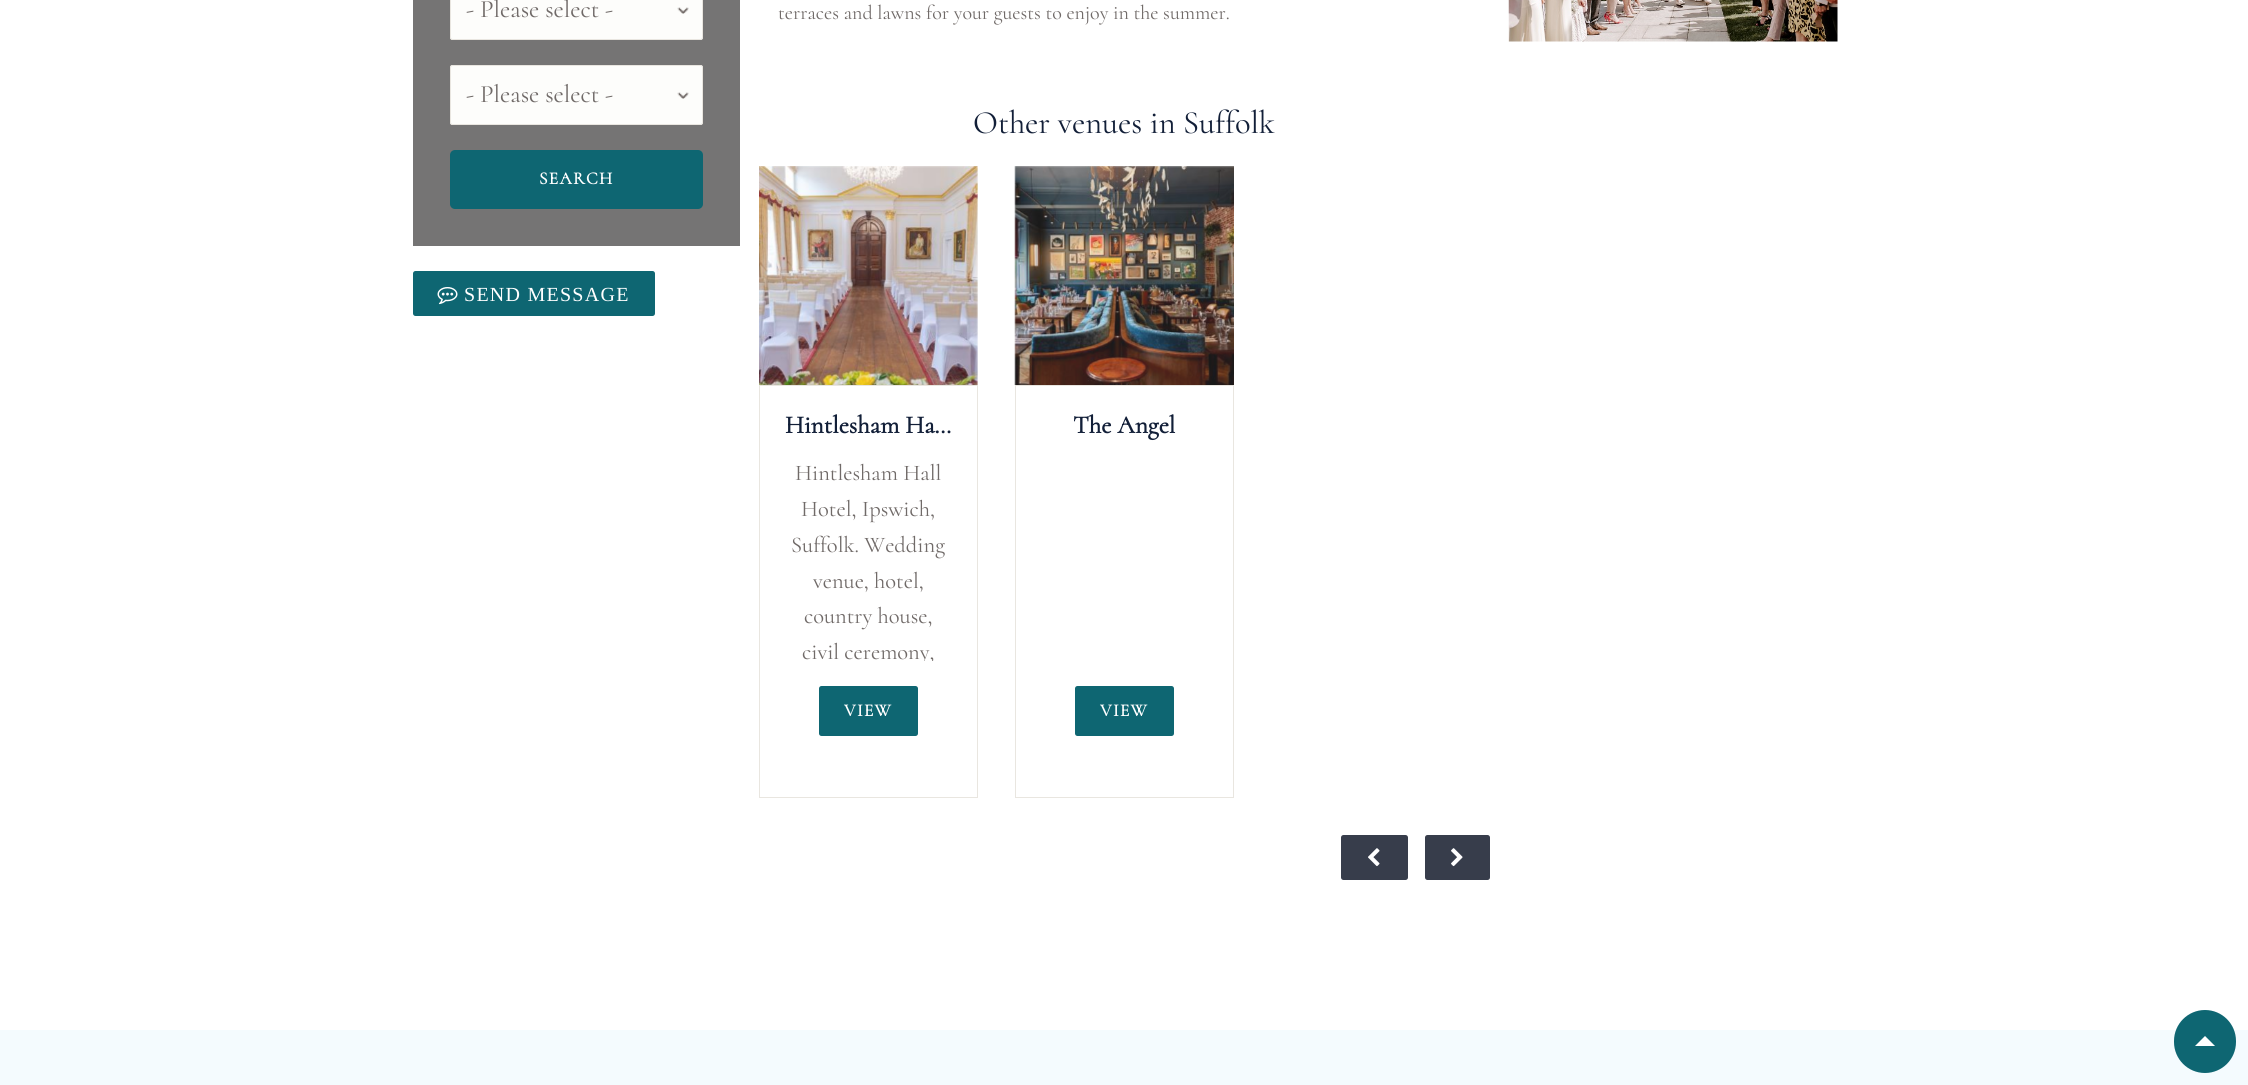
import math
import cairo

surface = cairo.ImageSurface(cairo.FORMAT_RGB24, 2248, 1085)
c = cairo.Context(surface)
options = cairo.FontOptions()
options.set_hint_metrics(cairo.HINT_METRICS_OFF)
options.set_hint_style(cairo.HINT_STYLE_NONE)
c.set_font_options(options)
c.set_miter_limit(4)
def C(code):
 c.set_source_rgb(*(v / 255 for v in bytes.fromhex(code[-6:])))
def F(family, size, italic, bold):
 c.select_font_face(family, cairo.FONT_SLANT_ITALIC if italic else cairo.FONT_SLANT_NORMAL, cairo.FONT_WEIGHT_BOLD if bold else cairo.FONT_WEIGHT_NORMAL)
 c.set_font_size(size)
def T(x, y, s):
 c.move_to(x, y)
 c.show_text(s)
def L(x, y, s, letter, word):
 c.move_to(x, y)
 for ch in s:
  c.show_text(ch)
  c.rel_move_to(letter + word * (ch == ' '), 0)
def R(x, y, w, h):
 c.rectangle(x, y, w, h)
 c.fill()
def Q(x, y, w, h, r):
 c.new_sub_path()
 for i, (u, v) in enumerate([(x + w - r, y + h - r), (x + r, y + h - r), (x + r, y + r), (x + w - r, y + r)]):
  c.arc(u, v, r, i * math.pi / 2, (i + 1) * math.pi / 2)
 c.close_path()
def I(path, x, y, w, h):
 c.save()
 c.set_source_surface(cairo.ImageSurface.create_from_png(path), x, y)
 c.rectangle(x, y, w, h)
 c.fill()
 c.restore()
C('ffffff')
c.paint()
C('757474')
R(413,0,327,246)
C('fdfdfb')
Q(450,-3,253,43,2.5)
c.fill()
I('1.png',677,7,12,7)
Q(450.5,-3.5,252,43,2)
C('e9e6e0')
c.set_line_width(1)
c.stroke()
F('Cormorant Light',25,0,0)
C('706a68')
T(466,17,'- Please select -')
C('fdfdfb')
Q(450,65,253,60,2.5)
c.fill()
I('1.png',677,92,12,7)
Q(450.5,65.5,252,59,2)
C('e9e6e0')
c.stroke()
C('706a68')
T(466,102,'- Please select -')
C('0e6672')
Q(450,150,253,59,5)
c.fill()
F('Cormorant',17.5,0,1)
C('ffffff')
L(539,184,'SEARCH',1.25,0)
C('0e6672')
Q(413,271,242,45,2.5)
c.fill()
I('2.png',437,287,21,18)
F('Liberation Serif',20,0,0)
C('ffffff')
L(464,301,'SEND MESSAGE',1.25,0)
F('Cormorant Light',20,0,0)
C('706a68')
T(778,19,'terraces and lawns for your guests to enjoy in the summer.')
F('Cormorant Light',32.5,0,0)
C('121f38')
T(973,133,'Other venues in Suffolk')
I('3.png',759,166,219,219)
c.rectangle(759.5,385.5,218,412)
C('e9e6e0')
c.stroke()
F('Cormorant',25,0,1)
C('121f38')
T(785,433,'Hintlesham Ha…')
F('Cormorant Light',22.5,0,0)
C('706a68')
T(795,480,'Hintlesham Hall')
T(801,516,'Hotel, Ipswich,')
T(791,552,'Suffolk. Wedding')
T(813,588,'venue, hotel,')
T(804,623,'country house,')
c.save()
c.rectangle(785,455,166,206)
c.clip()
T(802,659,'civil ceremony,')
c.restore()
C('0e6672')
Q(819,686,99,50,2.5)
c.fill()
F('Cormorant',17.5,0,1)
C('ffffff')
L(844,716,'VIEW',1.25,0)
I('4.png',1014,166,220,219)
c.rectangle(1015.5,385.5,218,412)
C('e9e6e0')
c.stroke()
F('Cormorant',25,0,1)
C('121f38')
T(1073,433,'The Angel')
C('0e6672')
Q(1075,686,99,50,2.5)
c.fill()
F('Cormorant',17.5,0,1)
C('ffffff')
L(1100,716,'VIEW',1.25,0)
C('373d4b')
Q(1341,835,67,45,2.5)
c.fill()
I('5.png',1368,848,12,19)
Q(1425,835,65,45,2.5)
c.fill()
I('6.png',1451,848,12,19)
I('7.png',1508,0,330,42)
C('f4fbfe')
R(0,1030,2248,55)
C('0e6672')
Q(2174,1010,62,63,31)
c.fill()
C('ffffff')
c.new_path()
c.move_to(2215,1046)
c.line_to(2195,1046)
c.line_to(2205,1036)
c.close_path()
c.fill()
surface.write_to_png('o.png')
